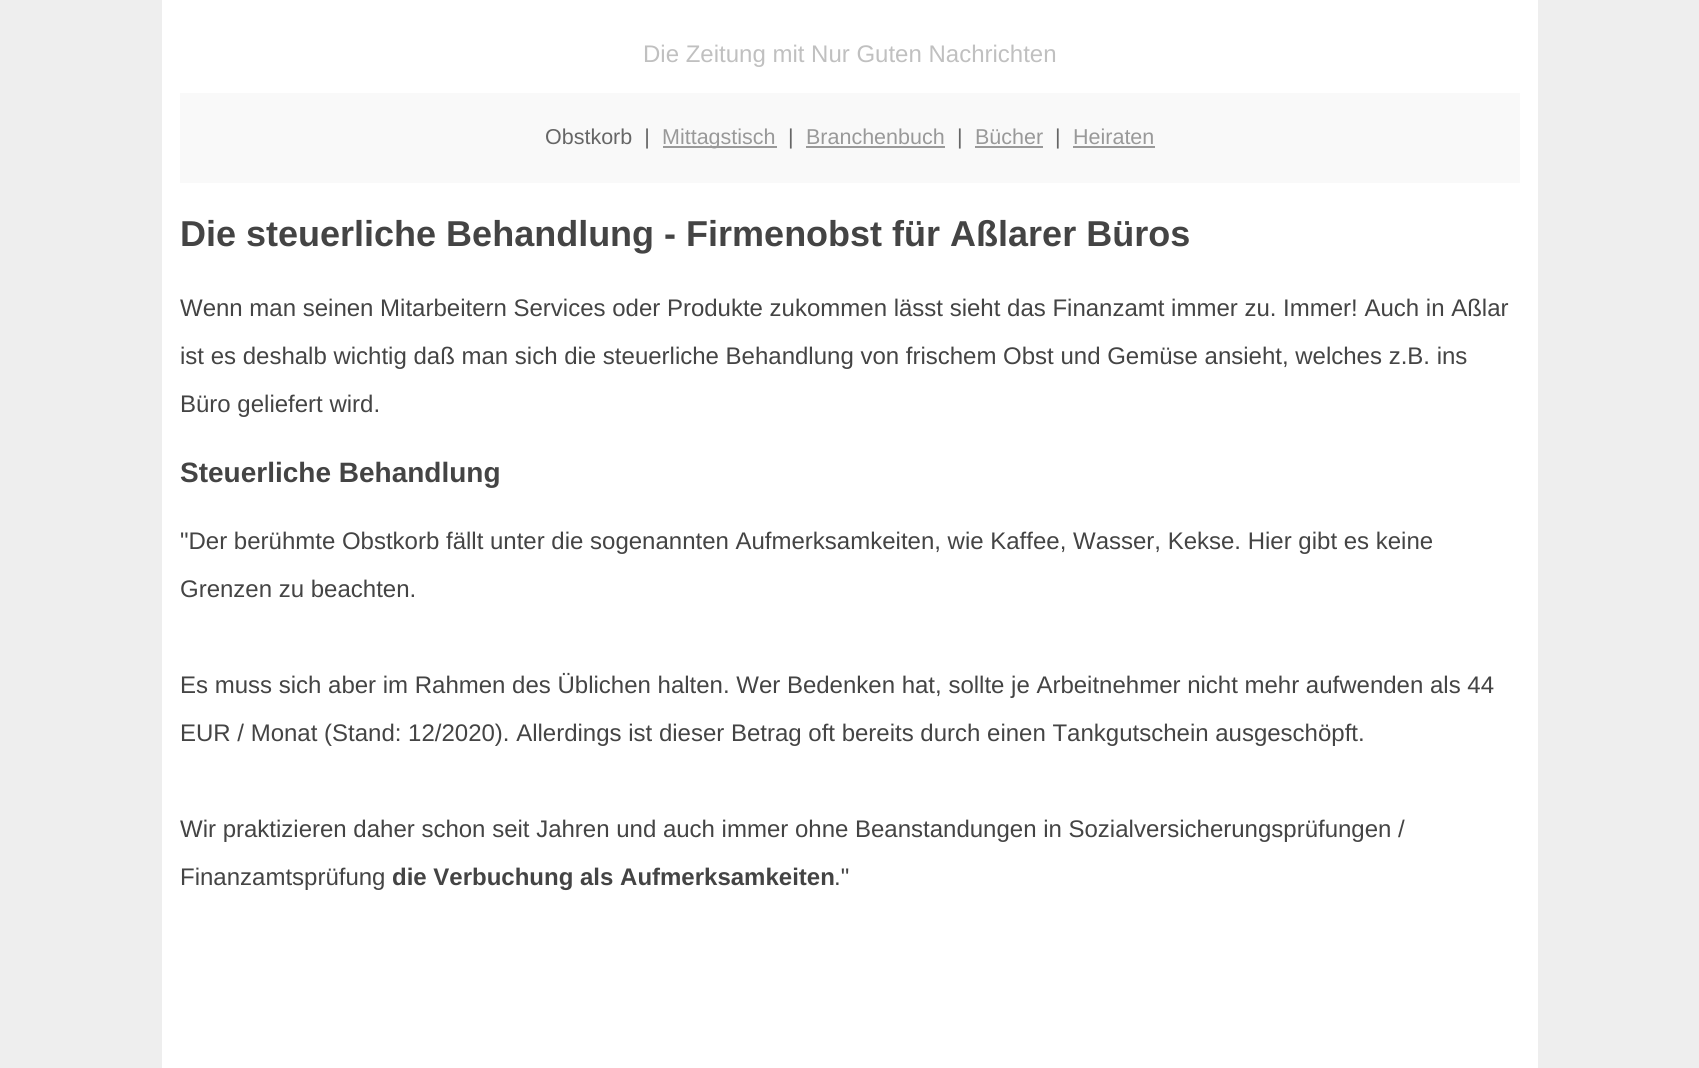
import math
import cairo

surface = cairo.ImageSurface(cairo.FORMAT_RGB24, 1699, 1068)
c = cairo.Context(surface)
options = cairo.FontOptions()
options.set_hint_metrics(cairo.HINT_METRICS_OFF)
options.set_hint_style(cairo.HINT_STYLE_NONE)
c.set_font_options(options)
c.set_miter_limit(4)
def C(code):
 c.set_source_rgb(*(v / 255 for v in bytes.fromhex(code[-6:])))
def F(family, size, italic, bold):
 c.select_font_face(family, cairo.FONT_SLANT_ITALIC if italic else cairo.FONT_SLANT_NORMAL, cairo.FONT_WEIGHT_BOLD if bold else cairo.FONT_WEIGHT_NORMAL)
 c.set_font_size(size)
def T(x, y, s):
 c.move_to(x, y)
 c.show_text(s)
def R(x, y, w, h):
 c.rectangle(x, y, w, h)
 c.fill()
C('eeeeee')
c.paint()
C('ffffff')
R(162,0,1376,1068)
F('Liberation Sans',24,0,0)
C('c0c0c0')
T(643,62,'Die Zeitung mit Nur Guten Nachrichten')
C('f9f9f9')
R(180,93,1340,90)
F('Liberation Sans',21.5,0,0)
C('666666')
T(545,144,'Obstkorb  |')
C('999999')
R(663,146,114,2)
T(662,144,'Mittagstisch')
C('666666')
T(788,144,'|')
C('999999')
T(806,144,'Branchenbuch')
R(806,146,139,2)
C('666666')
T(957,144,'|')
C('999999')
T(975,144,'Bücher')
R(975,146,68,2)
C('666666')
T(1055,144,'|')
C('999999')
T(1073,144,'Heiraten')
R(1073,146,82,2)
F('Liberation Sans',36,0,1)
C('444444')
T(180,246,'Die steuerliche Behandlung - Firmenobst für Aßlarer Büros')
F('Liberation Sans',24,0,0)
T(180,316,'Wenn man seinen Mitarbeitern Services oder Produkte zukommen lässt sieht das Finanzamt immer zu. Immer! Auch in Aßlar')
T(180,364,'ist es deshalb wichtig daß man sich die steuerliche Behandlung von frischem Obst und Gemüse ansieht, welches z.B. ins')
T(180,412,'Büro geliefert wird.')
F('Liberation Sans',28,0,1)
T(180,482,'Steuerliche Behandlung')
F('Liberation Sans',24,0,0)
T(180,549,'"Der berühmte Obstkorb fällt unter die sogenannten Aufmerksamkeiten, wie Kaffee, Wasser, Kekse. Hier gibt es keine')
T(180,597,'Grenzen zu beachten.')
T(180,693,'Es muss sich aber im Rahmen des Üblichen halten. Wer Bedenken hat, sollte je Arbeitnehmer nicht mehr aufwenden als 44')
T(180,741,'EUR / Monat (Stand: 12/2020). Allerdings ist dieser Betrag oft bereits durch einen Tankgutschein ausgeschöpft.')
T(180,837,'Wir praktizieren daher schon seit Jahren und auch immer ohne Beanstandungen in Sozialversicherungsprüfungen /')
T(180,885,'Finanzamtsprüfung')
F('Liberation Sans',24,0,1)
T(392,885,'die Verbuchung als Aufmerksamkeiten')
F('Liberation Sans',24,0,0)
T(834,885,'."')
surface.write_to_png('o.png')
